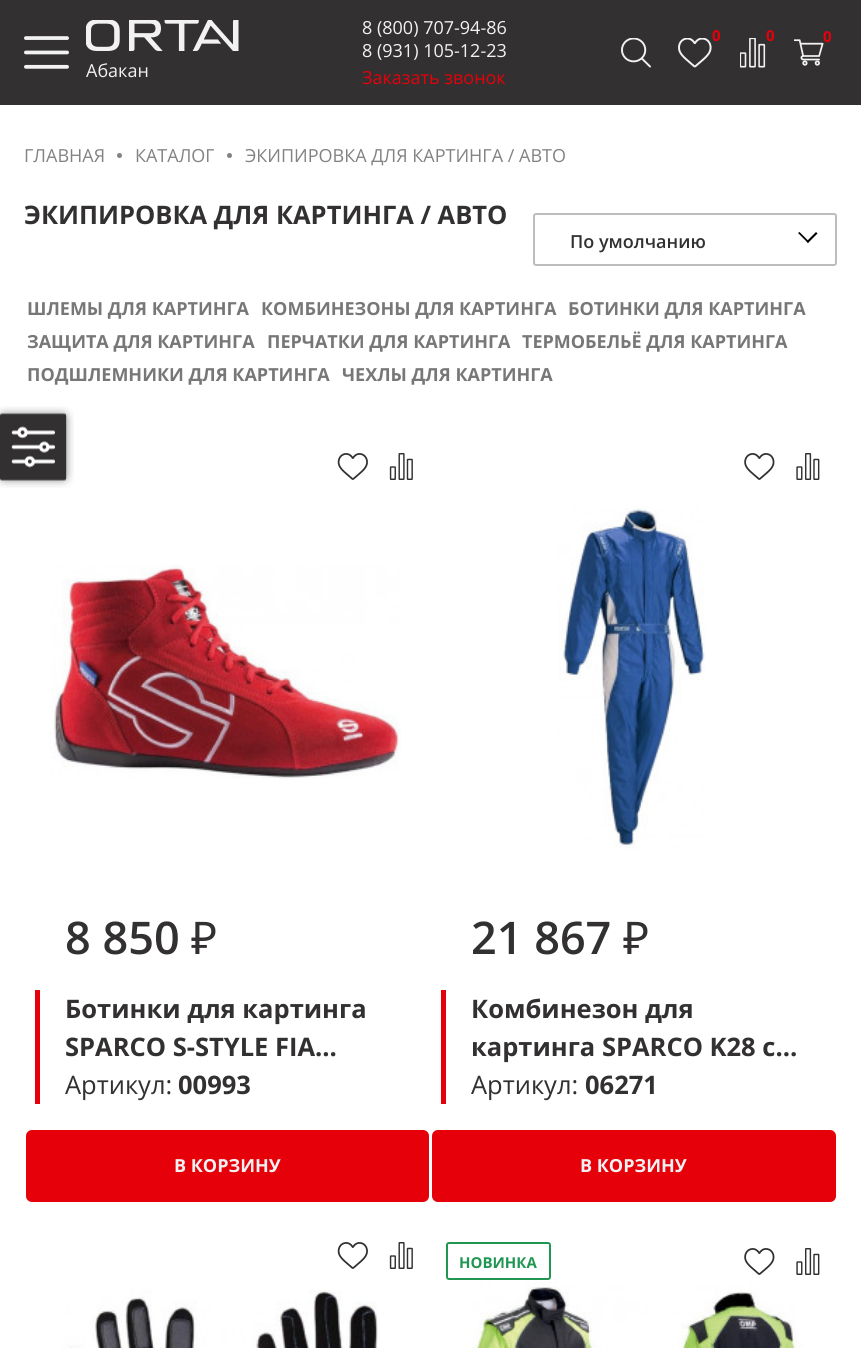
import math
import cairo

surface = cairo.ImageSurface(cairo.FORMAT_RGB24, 861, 1348)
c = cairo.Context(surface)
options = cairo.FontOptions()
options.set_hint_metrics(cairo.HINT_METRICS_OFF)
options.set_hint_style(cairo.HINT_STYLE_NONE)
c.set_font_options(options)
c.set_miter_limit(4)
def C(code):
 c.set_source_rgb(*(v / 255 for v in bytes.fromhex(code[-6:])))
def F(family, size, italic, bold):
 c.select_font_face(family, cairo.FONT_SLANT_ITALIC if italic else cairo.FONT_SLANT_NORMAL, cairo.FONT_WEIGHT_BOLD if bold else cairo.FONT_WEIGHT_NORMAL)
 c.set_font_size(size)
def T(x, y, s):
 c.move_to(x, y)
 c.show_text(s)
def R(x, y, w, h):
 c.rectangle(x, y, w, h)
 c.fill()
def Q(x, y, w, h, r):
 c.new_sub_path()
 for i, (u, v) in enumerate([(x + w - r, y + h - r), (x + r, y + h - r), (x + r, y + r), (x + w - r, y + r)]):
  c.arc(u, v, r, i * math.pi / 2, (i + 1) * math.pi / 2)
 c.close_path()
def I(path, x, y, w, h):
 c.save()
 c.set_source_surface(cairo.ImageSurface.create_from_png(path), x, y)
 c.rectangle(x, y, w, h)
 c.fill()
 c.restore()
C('ffffff')
c.paint()
C('323031')
R(0,0,861,105)
I('1.png',24,36,45,33)
F('Open Sans',18,0,0)
C('f2f2f2')
T(362,34,'8 (800) 707-94-86')
T(362,57,'8 (931) 105-12-23')
C('e6000a')
T(362,84,'Заказать звонок')
I('2.png',621,38,30,30)
F('Open Sans',15,0,1)
T(712,41,'0')
I('3.png',678,38,34,30)
T(766,41,'0')
I('4.png',740,38,26,30)
T(823,42,'0')
I('5.png',794,39,30,27)
I('6.png',86,20,153,31)
F('Open Sans',18,0,0)
C('f2f2f2')
T(86,77,'Абакан')
C('828282')
T(24,162,'ГЛАВНАЯ')
c.new_path()
c.arc(119.5,155.5,2.5,0,2 * math.pi)
c.fill()
T(135,162,'КАТАЛОГ')
c.new_path()
c.arc(229.5,155.5,2.5,0,2 * math.pi)
c.fill()
T(245,162,'ЭКИПИРОВКА ДЛЯ КАРТИНГА / АВТО')
F('Open Sans',25.5,0,1)
C('323031')
T(24,224,'ЭКИПИРОВКА ДЛЯ КАРТИНГА / АВТО')
Q(534,214,302,51,2)
C('bdbdbd')
c.stroke()
F('Open Sans SemiBold',18,0,0)
C('323031')
T(570,248,'По умолчанию')
C('000000')
c.new_path()
c.move_to(816,232)
c.line_to(817.5,233.5)
c.line_to(808,243)
c.line_to(806.5,241.5)
c.close_path()
c.fill()
c.new_path()
c.move_to(799.5,232)
c.line_to(809,241.5)
c.line_to(808,243)
c.line_to(798,233)
c.close_path()
c.fill()
F('Open Sans',18,0,1)
C('777777')
T(27,315,'ШЛЕМЫ ДЛЯ КАРТИНГА')
T(261,315,'КОМБИНЕЗОНЫ ДЛЯ КАРТИНГА')
T(568,315,'БОТИНКИ ДЛЯ КАРТИНГА')
T(27,348,'ЗАЩИТА ДЛЯ КАРТИНГА')
T(267,348,'ПЕРЧАТКИ ДЛЯ КАРТИНГА')
T(522,348,'ТЕРМОБЕЛЬЁ ДЛЯ КАРТИНГА')
T(27,381,'ПОДШЛЕМНИКИ ДЛЯ КАРТИНГА')
T(342,381,'ЧЕХЛЫ ДЛЯ КАРТИНГА')
I('7.png',337,453,31,27)
I('8.png',389,453,24,27)
I('9.png',50,564,351,215)
F('Open Sans SemiBold',45,0,0)
C('323031')
T(65,954,'8 850')
F('Noto Sans',45,0,0)
T(191,954,'₽')
C('e6000a')
R(35,990,5,114)
F('Open Sans',25.5,0,1)
C('323031')
T(65,1018,'Ботинки для картинга')
T(65,1056,'SPARCO S-STYLE FIA…')
F('Open Sans',25.5,0,0)
T(65,1094,'Артикул:')
F('Open Sans',25.5,0,1)
T(178,1094,'00993')
C('e6000a')
Q(27,1131,401,70,5)
c.fill_preserve()
c.stroke()
F('Open Sans',18,0,1)
C('f2f2f2')
T(174,1172,'В КОРЗИНУ')
I('10.png',744,453,31,27)
I('11.png',796,453,24,27)
I('12.png',558,506,147,343)
F('Open Sans SemiBold',45,0,0)
C('323031')
T(471,954,'21 867')
F('Noto Sans',45,0,0)
T(623,954,'₽')
C('e6000a')
R(441,990,5,114)
F('Open Sans',25.5,0,1)
C('323031')
T(471,1018,'Комбинезон для')
T(471,1056,'картинга SPARCO K28 с…')
F('Open Sans',25.5,0,0)
T(471,1094,'Артикул:')
F('Open Sans',25.5,0,1)
T(585,1094,'06271')
C('e6000a')
Q(433,1131,402,70,5)
c.fill_preserve()
c.stroke()
F('Open Sans',18,0,1)
C('f2f2f2')
T(580,1172,'В КОРЗИНУ')
I('7.png',337,1242,31,27)
I('8.png',389,1242,24,27)
I('13.png',63,1289,315,59)
Q(447,1243,103,36,2)
C('219653')
c.stroke()
F('Open Sans',15,0,1)
T(459,1268,'НОВИНКА')
I('10.png',744,1248,31,27)
I('11.png',796,1248,24,27)
I('14.png',472,1281,333,67)
I('15.png',0,406,74,82)
surface.write_to_png('o.png')
